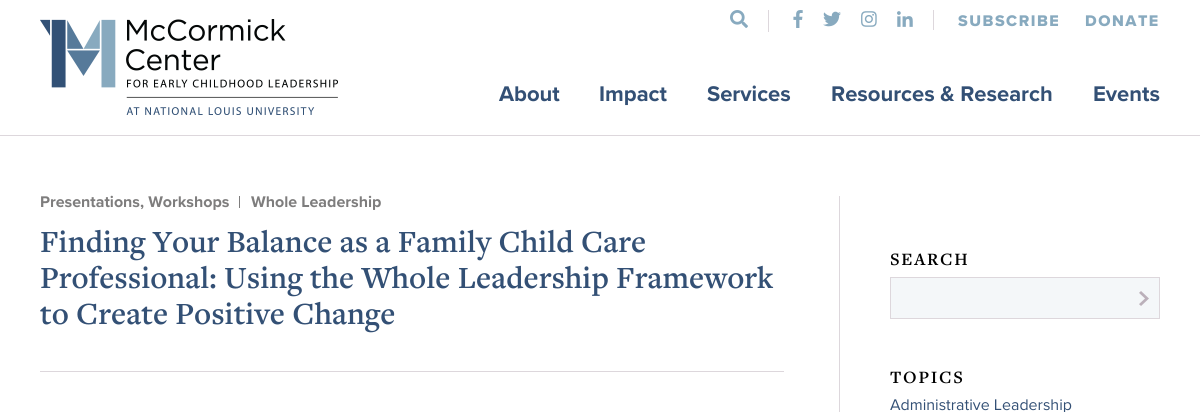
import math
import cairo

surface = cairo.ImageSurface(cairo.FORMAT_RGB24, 1200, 412)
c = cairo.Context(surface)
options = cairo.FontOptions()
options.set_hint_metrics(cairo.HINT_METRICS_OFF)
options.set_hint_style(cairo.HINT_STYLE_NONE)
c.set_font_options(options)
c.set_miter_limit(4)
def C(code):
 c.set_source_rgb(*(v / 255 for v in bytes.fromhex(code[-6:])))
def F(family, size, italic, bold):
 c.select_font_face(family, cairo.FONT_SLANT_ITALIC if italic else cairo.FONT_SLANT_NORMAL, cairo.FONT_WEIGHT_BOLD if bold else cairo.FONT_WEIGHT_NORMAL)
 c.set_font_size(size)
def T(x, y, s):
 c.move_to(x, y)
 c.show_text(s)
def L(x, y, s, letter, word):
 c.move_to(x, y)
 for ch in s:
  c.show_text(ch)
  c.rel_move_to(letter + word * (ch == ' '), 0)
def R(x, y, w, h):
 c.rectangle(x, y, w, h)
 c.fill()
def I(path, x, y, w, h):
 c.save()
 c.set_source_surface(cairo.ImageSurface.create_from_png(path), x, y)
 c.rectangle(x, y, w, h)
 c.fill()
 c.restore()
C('ffffff')
c.paint()
C('ddd7dc')
R(0,135,1200,1)
I('1.png',40,19,298,96)
R(768,10,1,22)
I('2.png',730,10,18,18)
R(933,10,1,20)
I('3.png',793,10,10,18)
I('4.png',823,11,18,16)
I('5.png',861,11,16,16)
I('6.png',897,11,16,16)
F('Proxima Nova ExtraBold',16,0,0)
C('88aabf')
L(958,26,'SUBSCRIBE',1.5,0)
L(1085,26,'DONATE',1.5,0)
F('Proxima Nova',22,0,1)
C('335075')
T(499,101,'About')
T(599,101,'Impact')
T(707,101,'Services')
T(831,101,'Resources & Research')
T(1093,101,'Events')
C('7e7d7d')
R(239,196,1,12)
F('Proxima Nova',16,0,1)
T(40,207,'Presentations, Workshops')
T(251,207,'Whole Leadership')
F('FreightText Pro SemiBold',32,0,0)
C('335075')
T(40,252,'Finding Your Balance as a Family Child Care')
T(40,288,'Professional: Using the Whole Leadership Framework')
T(40,324,'to Create Positive Change')
C('ddd7dc')
R(40,371,744,1)
R(839,196,1,216)
F('FreightText Pro SemiBold',18,0,0)
C('000000')
L(890,265,'SEARCH',1.75,0)
C('f4f7f9')
R(891,278,268,40)
I('7.png',1139,291,10,15)
c.rectangle(890.5,277.5,269,41)
C('ddd7dc')
c.set_line_width(1)
c.stroke()
C('000000')
L(890,383,'TOPICS',1.75,0)
F('Proxima Nova',16,0,0)
C('335075')
T(890,410,'Administrative Leadership')
surface.write_to_png('o.png')
